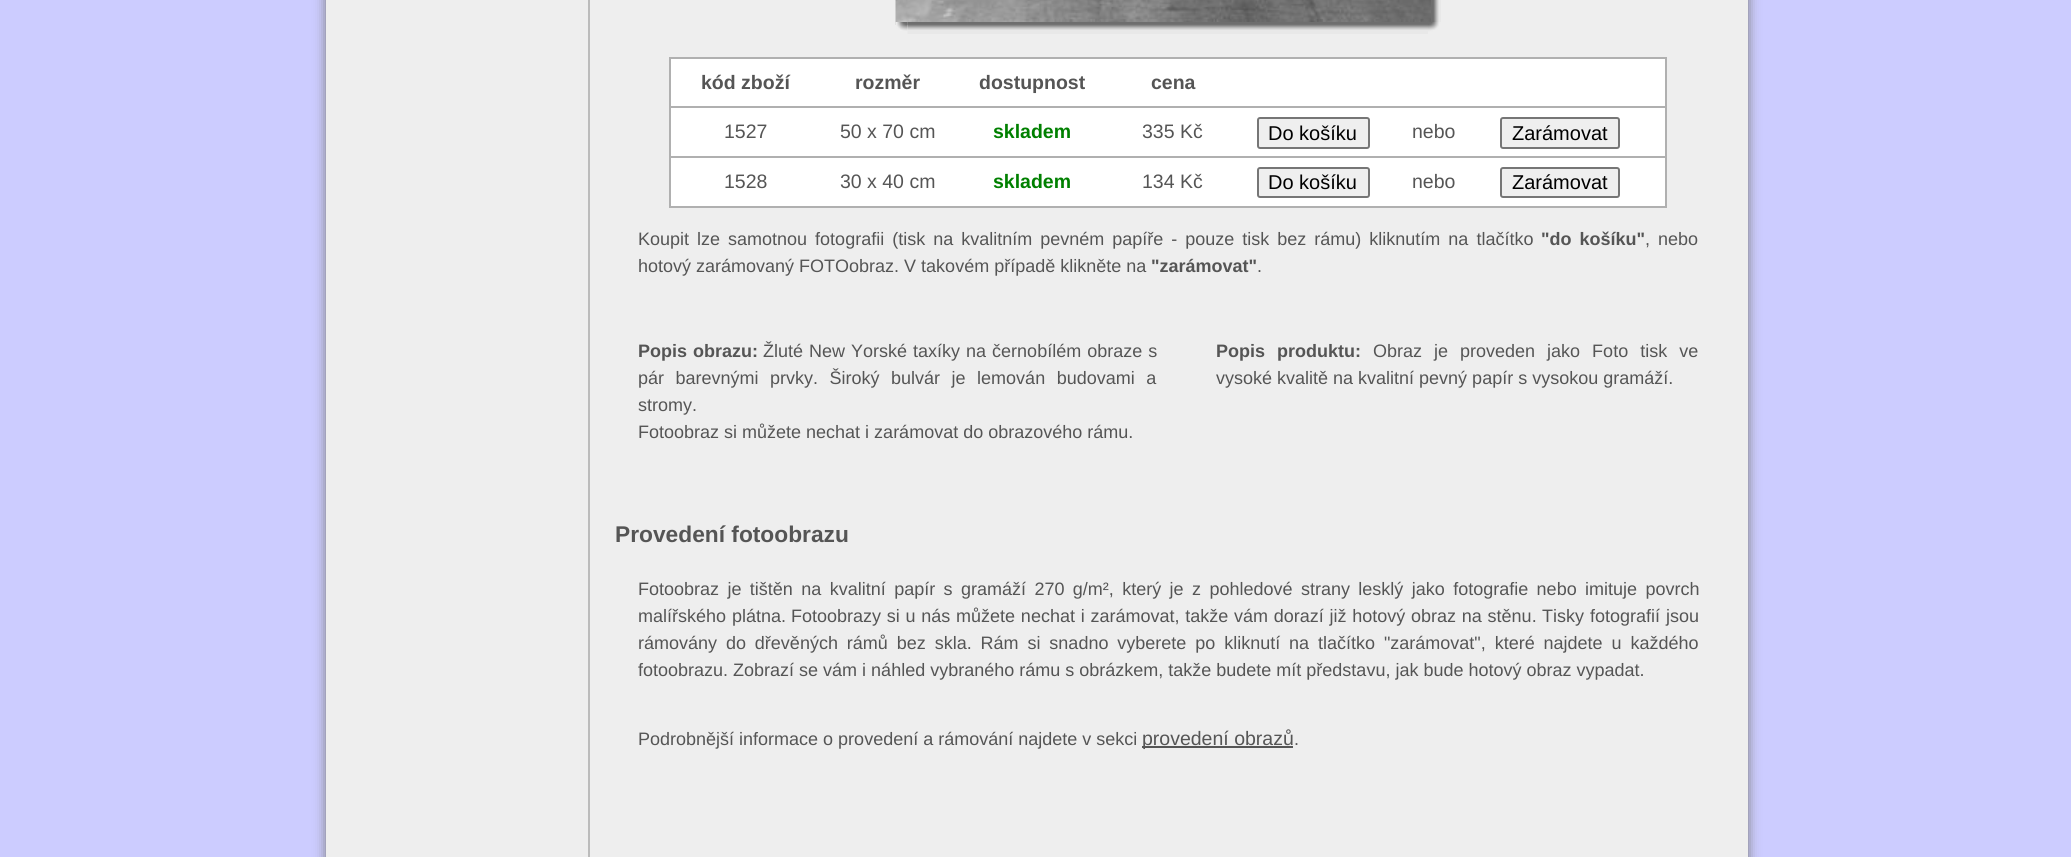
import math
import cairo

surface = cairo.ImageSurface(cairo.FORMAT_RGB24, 2071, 857)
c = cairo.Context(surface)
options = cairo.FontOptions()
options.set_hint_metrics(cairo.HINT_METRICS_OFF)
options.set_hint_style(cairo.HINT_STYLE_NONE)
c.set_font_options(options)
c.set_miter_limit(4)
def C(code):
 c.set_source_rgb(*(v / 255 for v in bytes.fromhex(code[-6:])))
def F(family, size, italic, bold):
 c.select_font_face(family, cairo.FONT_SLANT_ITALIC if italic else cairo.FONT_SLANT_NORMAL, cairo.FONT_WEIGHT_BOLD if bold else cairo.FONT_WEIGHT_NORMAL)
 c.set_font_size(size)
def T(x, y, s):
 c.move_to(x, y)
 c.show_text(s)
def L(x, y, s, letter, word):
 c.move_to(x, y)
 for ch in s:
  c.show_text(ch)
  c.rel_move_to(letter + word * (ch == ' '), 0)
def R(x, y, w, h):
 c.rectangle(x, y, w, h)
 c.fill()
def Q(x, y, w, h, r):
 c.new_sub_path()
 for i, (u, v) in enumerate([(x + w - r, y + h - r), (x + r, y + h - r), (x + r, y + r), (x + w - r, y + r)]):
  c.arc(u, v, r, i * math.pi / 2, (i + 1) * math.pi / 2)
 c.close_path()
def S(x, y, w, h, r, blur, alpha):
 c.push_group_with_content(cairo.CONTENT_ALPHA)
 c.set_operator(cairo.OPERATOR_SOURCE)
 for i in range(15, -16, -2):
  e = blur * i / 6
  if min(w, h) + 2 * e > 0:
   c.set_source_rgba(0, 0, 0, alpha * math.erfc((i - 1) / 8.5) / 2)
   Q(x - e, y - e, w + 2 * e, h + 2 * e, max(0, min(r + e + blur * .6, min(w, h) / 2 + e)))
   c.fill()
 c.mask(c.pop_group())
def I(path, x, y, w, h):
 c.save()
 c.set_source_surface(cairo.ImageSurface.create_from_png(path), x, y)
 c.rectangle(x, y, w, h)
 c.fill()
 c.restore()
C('ccccff')
c.paint()
C('777777')
S(326,-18,1422,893,0,6,1)
C('eeeeee')
R(326,0,1422,857)
C('bbbbbb')
R(588,0,2,857)
I('1.png',895,0,536,25)
I('2.png',1431,0,10,22)
I('3.png',895,22,13,9)
I('4.png',907,22,521,12)
I('5.png',1428,22,13,11)
C('ffffff')
c.rectangle(670,58,996,49)
c.fill_preserve()
C('b0b0b0')
c.stroke()
F('Liberation Sans',19.5,0,1)
C('555555')
T(701,89,'kód zboží')
T(855,89,'rozměr')
T(979,89,'dostupnost')
T(1151,89,'cena')
C('ffffff')
R(671,108,994,48)
C('b0b0b0')
R(1665,108,2,99)
R(669,156,998,2)
R(669,108,2,50)
F('Liberation Sans',19.5,0,0)
C('555555')
T(724,138,'1527')
T(840,138,'50 x 70 cm')
F('Liberation Sans',19.5,0,1)
C('008000')
T(993,138,'skladem')
F('Liberation Sans',19.5,0,0)
C('555555')
T(1142,138,'335 Kč')
C('efefef')
Q(1258,118,111,30,2)
c.fill_preserve()
C('767676')
c.stroke()
F('Liberation Sans',20,0,0)
C('000000')
T(1268,140,'Do košíku')
F('Liberation Sans',19.5,0,0)
C('555555')
T(1412,138,'nebo')
C('efefef')
Q(1501,118,118,30,2)
c.fill_preserve()
C('767676')
c.stroke()
F('Liberation Sans',20,0,0)
C('000000')
T(1512,140,'Zarámovat')
C('ffffff')
R(671,158,994,48)
C('b0b0b0')
R(669,206,998,2)
R(669,158,2,49)
F('Liberation Sans',19.5,0,0)
C('555555')
T(724,188,'1528')
T(840,188,'30 x 40 cm')
F('Liberation Sans',19.5,0,1)
C('008000')
T(993,188,'skladem')
F('Liberation Sans',19.5,0,0)
C('555555')
T(1142,188,'134 Kč')
C('efefef')
Q(1258,168,111,29,2)
c.fill_preserve()
C('767676')
c.stroke()
F('Liberation Sans',20,0,0)
C('000000')
T(1268,189,'Do košíku')
F('Liberation Sans',19.5,0,0)
C('555555')
T(1412,188,'nebo')
C('efefef')
Q(1501,168,118,29,2)
c.fill_preserve()
C('767676')
c.stroke()
F('Liberation Sans',20,0,0)
C('000000')
T(1512,189,'Zarámovat')
F('Liberation Sans',18,0,0)
C('555555')
L(638,245,'Koupit lze samotnou fotografii (tisk na kvalitním pevném papíře - pouze tisk bez rámu) kliknutím na tlačítko',0,3)
F('Liberation Sans',18,0,1)
L(1541,245,'"do košíku"',0,3)
F('Liberation Sans',18,0,0)
L(1645,245,', nebo',0,3)
T(638,272,'hotový zarámovaný FOTOobraz. V takovém případě klikněte na')
F('Liberation Sans',18,0,1)
T(1151,272,'"zarámovat"')
F('Liberation Sans',18,0,0)
T(1257,272,'.')
F('Liberation Sans',18,0,1)
L(638,357,'Popis obrazu:',0,1)
F('Liberation Sans',18,0,0)
L(763,357,'Žluté New Yorské taxíky na černobílém obraze s',0,1)
L(638,384,'pár barevnými prvky. Široký bulvár je lemován budovami a',0,6.5)
T(638,411,'stromy.')
T(638,438,'Fotoobraz si můžete nechat i zarámovat do obrazového rámu.')
F('Liberation Sans',18,0,1)
L(1216,357,'Popis produktu:',0,7)
F('Liberation Sans',18,0,0)
L(1373,357,'Obraz je proveden jako Foto tisk ve',0,7)
T(1216,384,'vysoké kvalitě na kvalitní pevný papír s vysokou gramáží.')
F('Liberation Sans',22.75,0,1)
T(615,542,'Provedení fotoobrazu')
F('Liberation Sans',18,0,0)
L(638,595,'Fotoobraz je tištěn na kvalitní papír s gramáží 270 g/m², který je z pohledové strany lesklý jako fotografie nebo imituje povrch',0,3.4)
L(638,622,'malířského plátna.',0,1)
L(791,622,'Fotoobrazy si u nás můžete nechat i zarámovat, takže vám dorazí již hotový obraz na stěnu.',0,.75)
L(1542,622,'Tisky fotografií jsou',0,1)
L(638,649,'rámovány do dřevěných rámů bez skla. Rám si snadno vyberete po kliknutí na tlačítko "zarámovat", které najdete u každého',0,3.9)
T(638,676,'fotoobrazu. Zobrazí se vám i náhled vybraného rámu s obrázkem, takže budete mít představu, jak bude hotový obraz vypadat.')
T(638,745,'Podrobnější informace o provedení a rámování najdete v sekci')
R(1142,746,151,2)
F('Liberation Sans',19.5,0,0)
T(1142,745,'provedení obrazů')
F('Liberation Sans',18,0,0)
T(1294,745,'.')
surface.write_to_png('o.png')
